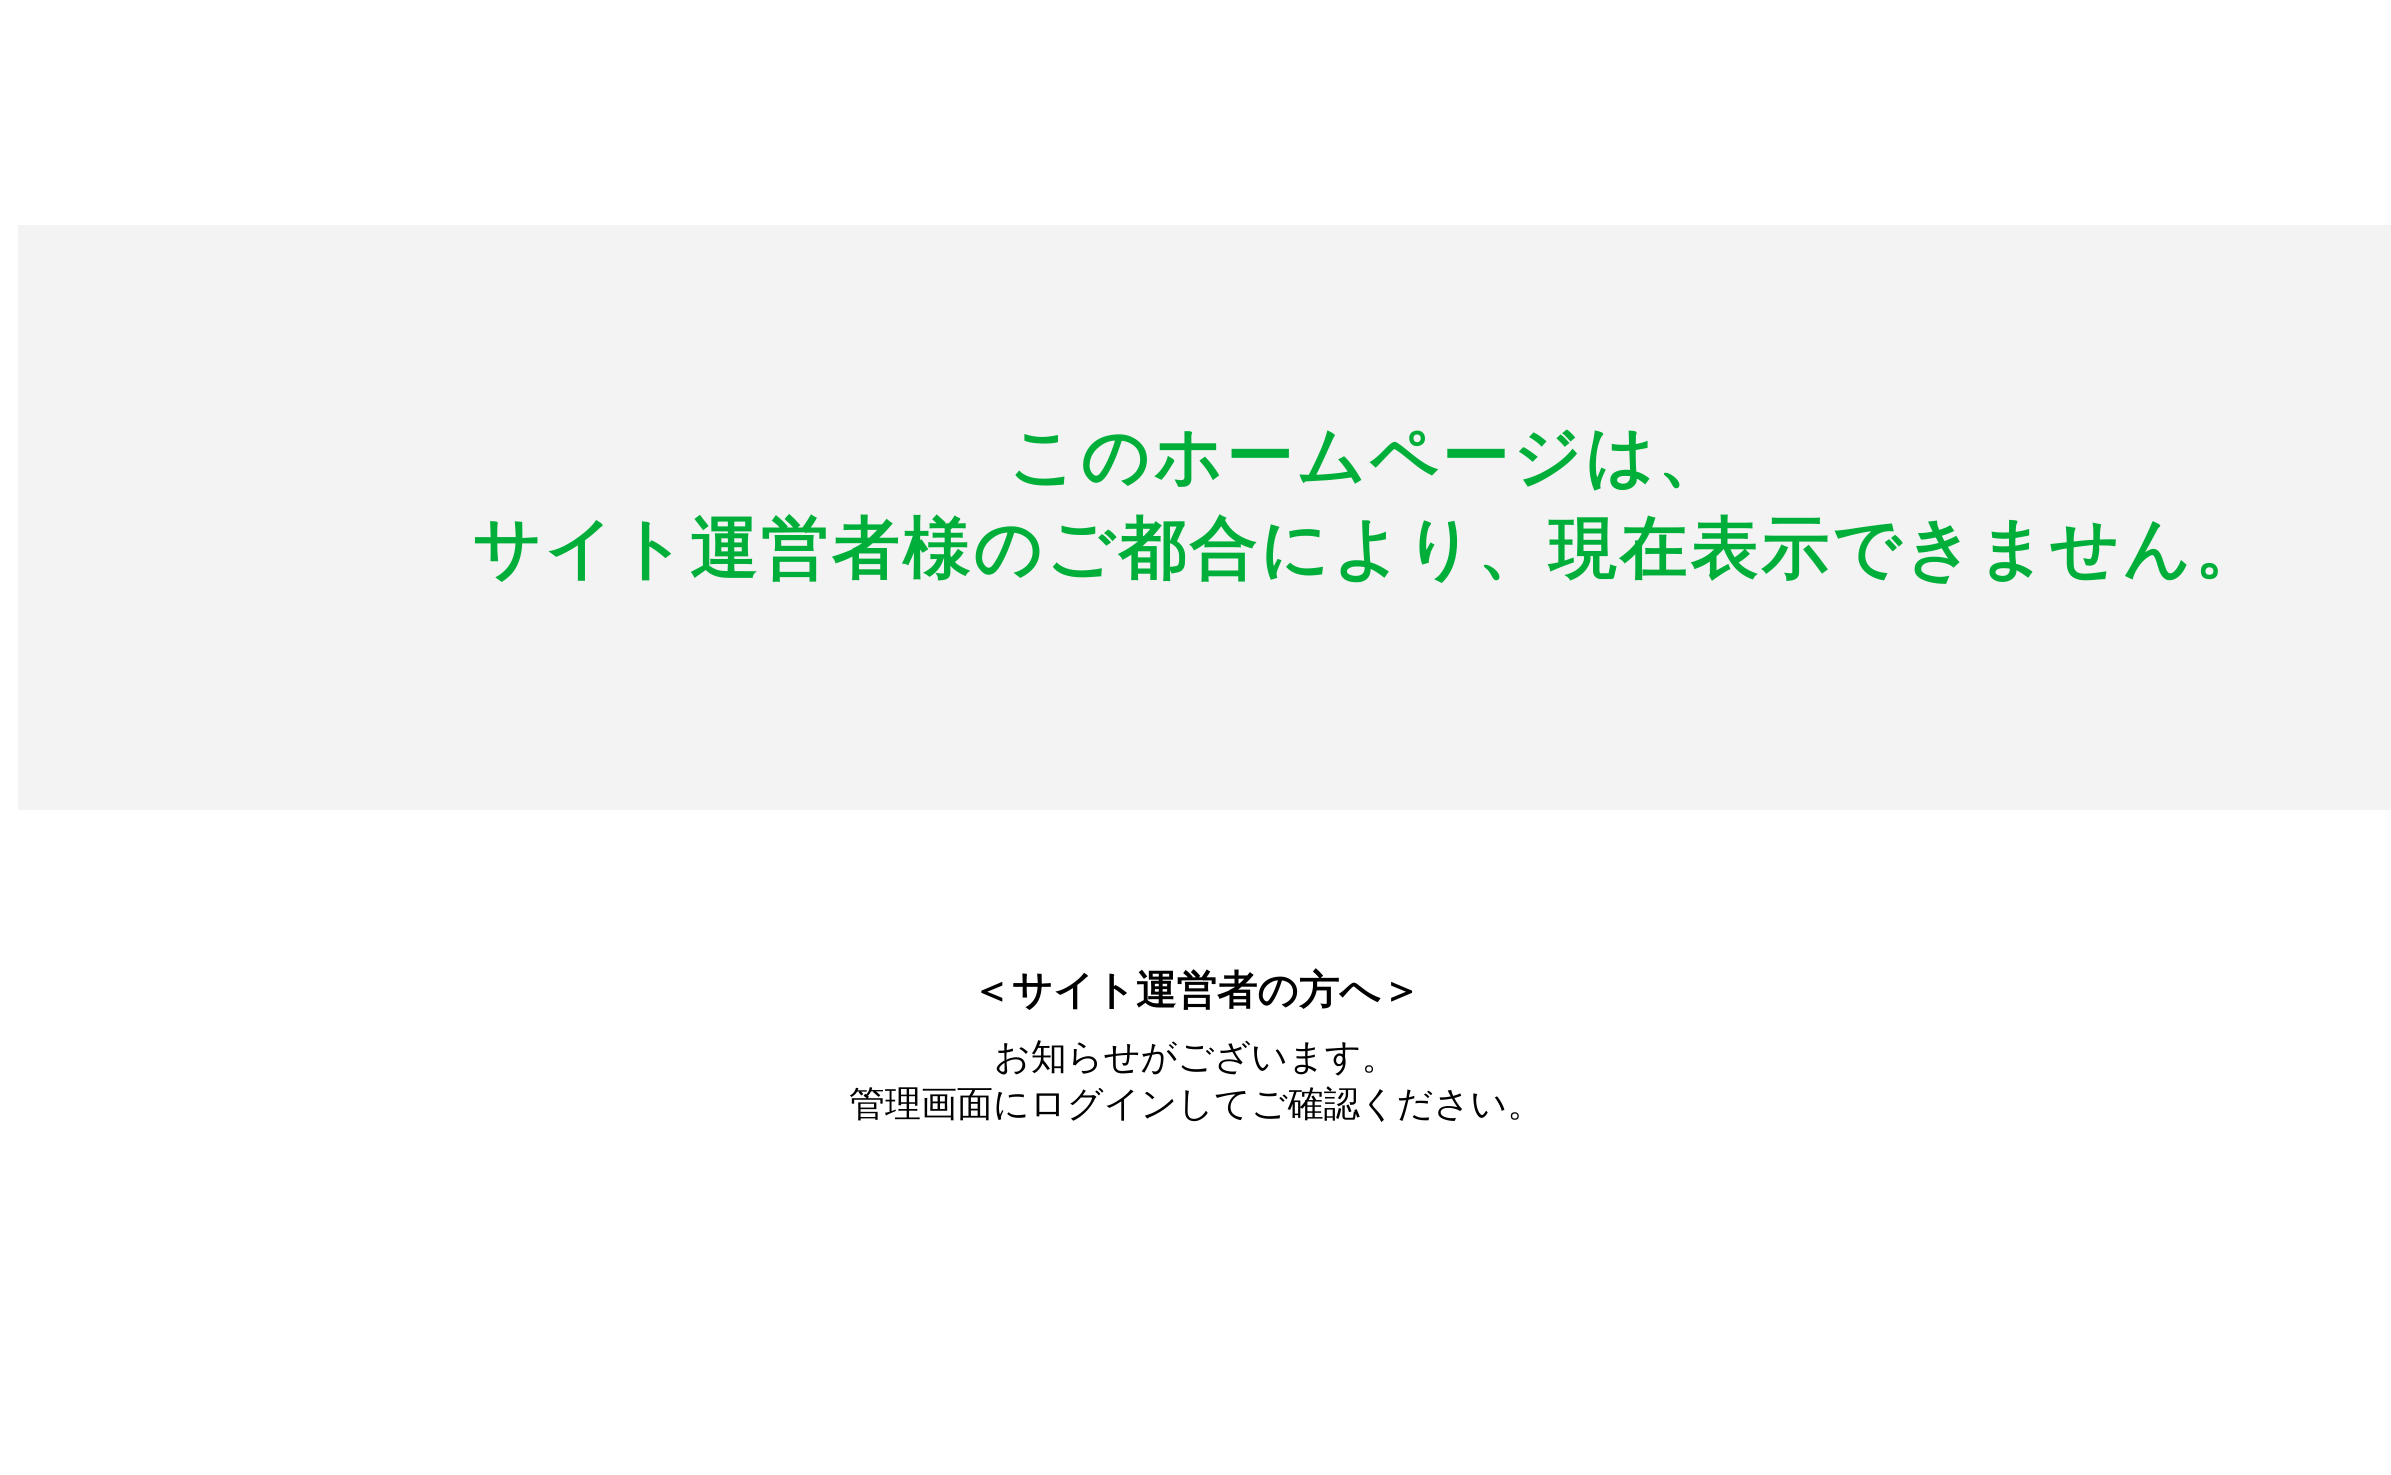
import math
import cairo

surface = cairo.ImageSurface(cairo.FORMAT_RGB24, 2391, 1475)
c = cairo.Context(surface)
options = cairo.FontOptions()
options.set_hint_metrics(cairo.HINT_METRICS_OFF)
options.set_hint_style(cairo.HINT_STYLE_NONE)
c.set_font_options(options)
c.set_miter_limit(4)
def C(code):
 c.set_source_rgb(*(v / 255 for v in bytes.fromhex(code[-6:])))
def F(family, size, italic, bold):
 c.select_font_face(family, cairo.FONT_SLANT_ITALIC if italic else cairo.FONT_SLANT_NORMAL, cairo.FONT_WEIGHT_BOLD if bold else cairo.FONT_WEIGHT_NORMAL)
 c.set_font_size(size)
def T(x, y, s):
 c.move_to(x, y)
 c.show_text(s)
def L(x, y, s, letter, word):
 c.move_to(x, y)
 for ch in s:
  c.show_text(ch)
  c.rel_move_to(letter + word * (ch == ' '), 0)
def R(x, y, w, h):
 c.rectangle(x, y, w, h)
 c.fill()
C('ffffff')
c.paint()
C('f3f3f3')
R(18,225,2373,585)
F('WenQuanYi Zen Hei',67.5,0,1)
C('00af3a')
L(1008,480,'このホームページは、',3.4,0)
L(472,572,'サイト運営者様のご都合により、現在表示できません。',3.4,0)
F('WenQuanYi Zen Hei',40.5,0,1)
C('000000')
T(971,1004,'＜サイト運営者の方へ＞')
F('WenQuanYi Zen Hei Medium',36,0,0)
T(994,1069,'お知らせがございます。')
T(849,1116,'管理画面にログインしてご確認ください。')
surface.write_to_png('o.png')
